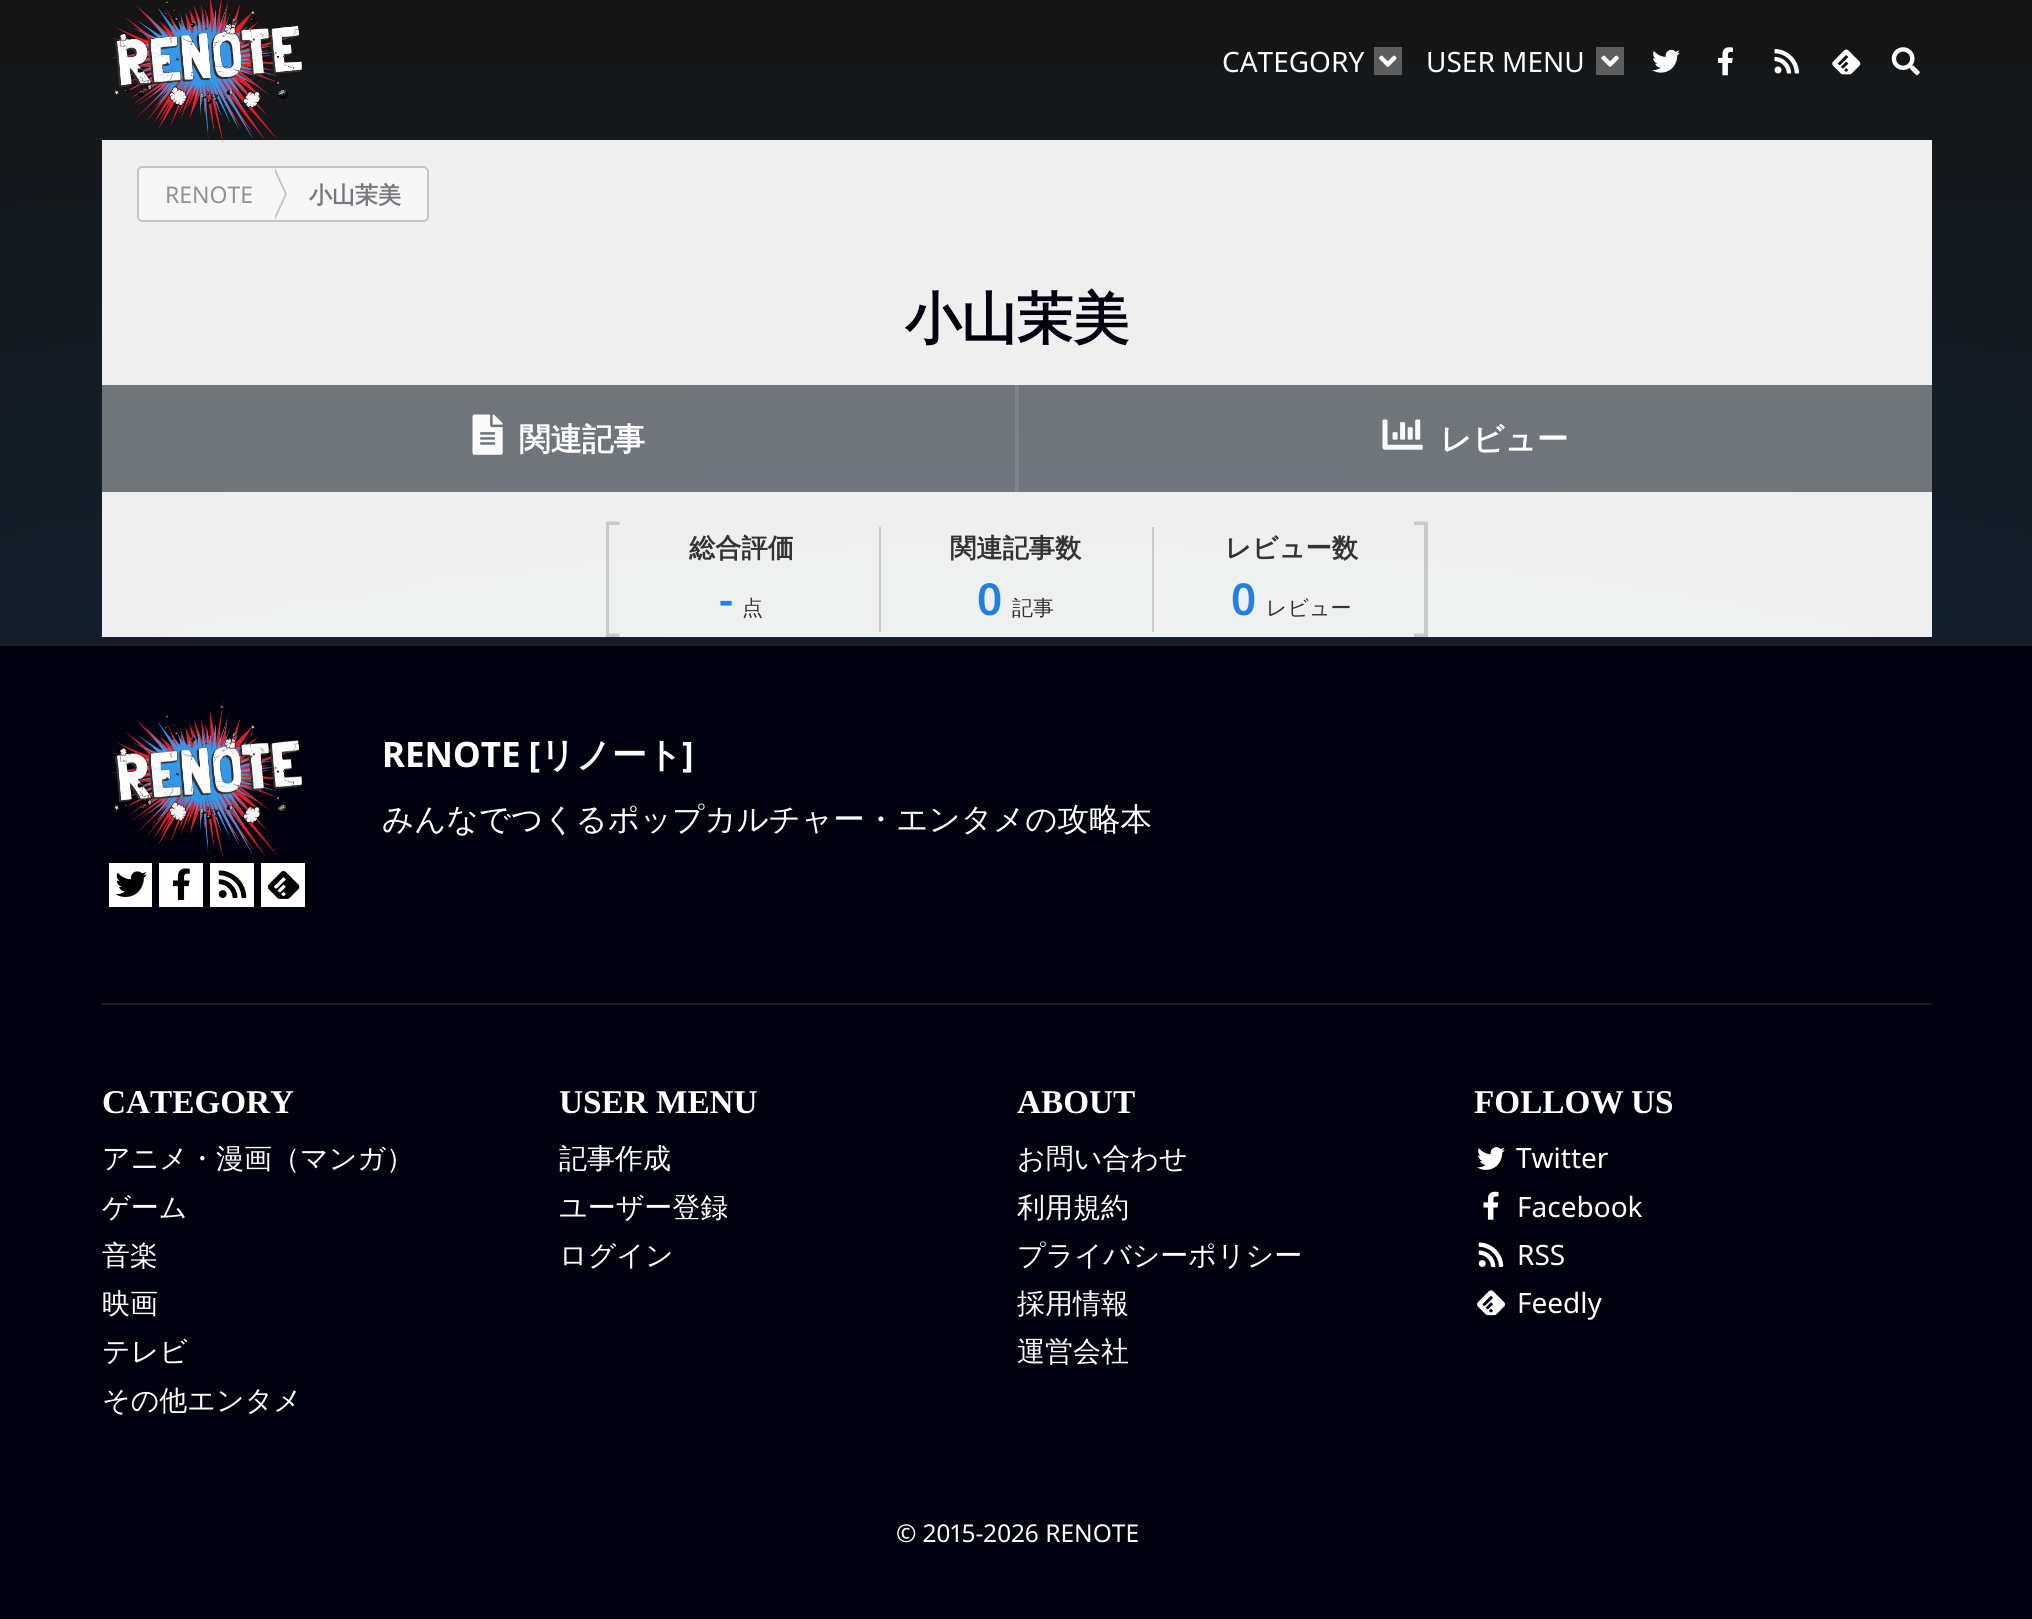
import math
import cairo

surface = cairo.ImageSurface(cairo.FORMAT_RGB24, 2032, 1619)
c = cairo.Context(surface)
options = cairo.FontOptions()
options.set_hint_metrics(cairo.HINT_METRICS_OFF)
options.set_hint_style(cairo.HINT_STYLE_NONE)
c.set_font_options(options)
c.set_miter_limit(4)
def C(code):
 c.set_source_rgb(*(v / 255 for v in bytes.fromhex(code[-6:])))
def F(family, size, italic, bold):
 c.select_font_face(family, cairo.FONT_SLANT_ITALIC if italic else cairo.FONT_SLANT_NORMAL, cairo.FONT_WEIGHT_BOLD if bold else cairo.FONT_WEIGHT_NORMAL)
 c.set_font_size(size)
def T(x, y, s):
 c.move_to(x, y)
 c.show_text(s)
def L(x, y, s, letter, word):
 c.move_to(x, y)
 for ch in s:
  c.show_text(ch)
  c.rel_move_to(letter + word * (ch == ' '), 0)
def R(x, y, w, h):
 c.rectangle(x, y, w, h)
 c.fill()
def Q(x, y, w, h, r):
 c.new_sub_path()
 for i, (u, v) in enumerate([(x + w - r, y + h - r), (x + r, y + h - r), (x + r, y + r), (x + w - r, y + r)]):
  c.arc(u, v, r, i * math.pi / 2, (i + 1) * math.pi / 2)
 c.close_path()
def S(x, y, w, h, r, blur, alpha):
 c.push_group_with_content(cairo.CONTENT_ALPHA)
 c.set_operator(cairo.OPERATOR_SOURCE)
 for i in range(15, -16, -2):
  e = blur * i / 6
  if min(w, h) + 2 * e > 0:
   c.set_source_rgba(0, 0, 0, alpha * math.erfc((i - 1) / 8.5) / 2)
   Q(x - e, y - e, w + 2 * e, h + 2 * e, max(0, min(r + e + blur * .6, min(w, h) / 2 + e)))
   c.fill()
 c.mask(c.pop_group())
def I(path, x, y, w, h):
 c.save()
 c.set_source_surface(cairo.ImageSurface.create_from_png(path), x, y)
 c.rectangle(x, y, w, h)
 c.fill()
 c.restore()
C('ffffff')
c.paint()
C('151515')
S(-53,-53,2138,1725,0,17.5,1)
I('1.png',0,64,2032,575)
c.set_source_rgba(0.98,0.98,0.98,0.95)
R(102,140,1830,109)
I('2.png',111,0,191,143)
F('Noto Sans',28,0,0)
C('ffffff')
T(1222,72,'CATEGORY')
C('5b5d5f')
R(1374,47,28,28)
I('3.png',1379,55,18,12)
C('ffffff')
T(1426,72,'USER MENU')
C('5b5d5e')
R(1596,47,28,28)
I('4.png',1601,55,18,12)
I('5.png',1652,49,28,24)
I('6.png',1718,47,15,29)
I('7.png',1774,49,25,25)
I('8.png',1832,49,29,26)
I('9.png',1891,47,29,29)
C('f7f7f7')
c.new_path()
c.move_to(142,167)
c.line_to(274,167)
c.line_to(274,221)
c.line_to(142,221)
c.curve_to(140,221,138,219,138,217)
c.line_to(138,171)
c.curve_to(138,169,140,167,142,167)
c.close_path()
c.fill_preserve()
C('c4c4c4')
c.stroke()
C('f7f7f7')
c.new_path()
c.move_to(266,166)
c.line_to(424,166)
c.curve_to(427,166,429,168,429,171)
c.line_to(429,217)
c.curve_to(429,220,427,222,424,222)
c.line_to(266,222)
c.close_path()
c.fill()
C('c4c4c4')
c.set_fill_rule(cairo.FILL_RULE_EVEN_ODD)
c.new_path()
c.move_to(266,166)
c.line_to(424,166)
c.curve_to(426,166,429,169,429,172)
c.line_to(429,217)
c.curve_to(429,220,426,222,424,222)
c.line_to(266,222)
c.close_path()
c.move_to(266,168)
c.line_to(424,168)
c.curve_to(425,168,427,170,427,172)
c.line_to(427,217)
c.curve_to(427,219,425,220,424,220)
c.line_to(266,220)
c.close_path()
c.fill()
c.set_fill_rule(cairo.FILL_RULE_WINDING)
c.new_path()
c.move_to(275,220)
c.line_to(275,168)
c.line_to(287,194)
c.close_path()
c.fill()
C('f7f7f7')
c.new_path()
c.move_to(273,220)
c.line_to(273,168)
c.line_to(285,194)
c.close_path()
c.fill()
F('Noto Sans',23,0,0)
C('919191')
T(165,203,'RENOTE')
F('WenQuanYi Zen Hei',23,0,1)
C('77787f')
T(309,203,'小山茉美')
c.set_source_rgba(0.98,0.98,0.98,0.95)
R(102,249,1830,136)
F('WenQuanYi Zen Hei',56,0,1)
C('00010f')
T(905,338,'小山茉美')
c.set_source_rgba(0.98,0.98,0.98,0.4)
R(102,385,915,107)
c.set_source_rgba(1,1,1,0.1)
R(1015,385,2,107)
I('10.png',472,414,31,41)
F('WenQuanYi Zen Hei',31.5,0,1)
C('ffffff')
T(519,450,'関連記事')
c.set_source_rgba(0.98,0.98,0.98,0.4)
R(1017,385,915,107)
c.set_source_rgba(1,1,1,0.1)
R(1017,385,2,107)
I('11.png',1382,419,41,31)
C('ffffff')
T(1440,450,'レビュー')
c.set_source_rgba(0.98,0.98,0.98,0.95)
R(102,492,1830,145)
C('c9c9ca')
R(879,527,2,105)
c.new_path()
c.move_to(605.5,521.5)
c.line_to(619.5,521.5)
c.line_to(619.5,525)
c.line_to(609,525)
c.close_path()
c.fill()
C('c9caca')
c.new_path()
c.move_to(619.5,637)
c.line_to(605.5,637)
c.line_to(609,633.5)
c.line_to(619.5,633.5)
c.close_path()
c.fill()
c.set_source_rgba(0.2,0.2,0.2,0.2)
c.new_path()
c.move_to(606,637)
c.line_to(606,522)
c.line_to(609,525)
c.line_to(609,634)
c.close_path()
c.fill()
F('WenQuanYi Zen Hei',26.25,0,1)
C('333333')
T(689,557,'総合評価')
F('Noto Sans SemiBold',44,0,0)
C('217ee7')
T(719,615,'-')
F('WenQuanYi Zen Hei Medium',21,0,0)
C('333333')
T(742,615,'点')
C('c9c9ca')
R(1152,527,2,105)
F('WenQuanYi Zen Hei',26.25,0,1)
C('333333')
T(950,557,'関連記事数')
F('Noto Sans SemiBold',44,0,0)
C('217ee7')
T(977,615,'0')
F('WenQuanYi Zen Hei Medium',21,0,0)
C('333333')
T(1012,615,'記事')
F('WenQuanYi Zen Hei',26.25,0,1)
T(1225,557,'レビュー数')
F('Noto Sans SemiBold',44,0,0)
C('217ee7')
T(1231,615,'0')
F('WenQuanYi Zen Hei Medium',21,0,0)
C('333333')
T(1266,615,'レビュー')
C('c9c9ca')
c.new_path()
c.move_to(1414,521.5)
c.line_to(1428,521.5)
c.line_to(1424.5,525)
c.line_to(1414,525)
c.close_path()
c.fill()
c.set_source_rgba(0.2,0.2,0.2,0.2)
c.new_path()
c.move_to(1428,522)
c.line_to(1428,637)
c.line_to(1424,634)
c.line_to(1424,525)
c.close_path()
c.fill()
c.new_path()
c.move_to(1428,637)
c.line_to(1414,637)
c.line_to(1414,633.5)
c.line_to(1424.5,633.5)
c.close_path()
c.fill()
C('00010f')
R(0,646,2032,973)
C('1a1a27')
R(0,639,2032,7)
I('12.png',111,701,191,158)
C('ffffff')
R(109,863,43,44)
I('13.png',115,871,32,26)
R(159,863,44,44)
I('14.png',172,868,18,32)
R(210,863,44,44)
I('15.png',218,870,29,28)
R(261,863,44,44)
I('16.png',267,871,33,28)
F('Noto Sans',35,0,1)
L(382,767,'RENOTE [',0,-1)
F('WenQuanYi Zen Hei',35,0,1)
T(540,767,'リノート')
F('Noto Sans',35,0,1)
T(682,767,']')
F('WenQuanYi Zen Hei Medium',31.5,0,0)
T(382,830,'みんなでつくるポップカルチャー・エンタメの攻略本')
C('1a1a27')
R(102,1003,1830,2)
F('Liberation Serif',33.25,0,1)
C('ffffff')
T(102,1113,'CATEGORY')
F('WenQuanYi Zen Hei Medium',28,0,0)
T(102,1168,'アニメ・漫画（マンガ）')
T(102,1217,'ゲーム')
T(102,1265,'音楽')
T(102,1313,'映画')
T(102,1361,'テレビ')
T(102,1410,'その他エンタメ')
F('Liberation Serif',33.25,0,1)
T(559,1113,'USER MENU')
F('WenQuanYi Zen Hei Medium',28,0,0)
T(559,1168,'記事作成')
T(559,1217,'ユーザー登録')
T(559,1265,'ログイン')
F('Liberation Serif',33.25,0,1)
T(1017,1113,'ABOUT')
F('WenQuanYi Zen Hei Medium',28,0,0)
T(1017,1168,'お問い合わせ')
T(1017,1217,'利用規約')
T(1017,1265,'プライバシーポリシー')
T(1017,1313,'採用情報')
T(1017,1361,'運営会社')
F('Liberation Serif',33.25,0,1)
L(1474,1113,'FOLLOW US',0,-1)
I('17.png',1477,1147,28,23)
F('Noto Sans',28,0,0)
T(1516,1168,'Twitter')
I('18.png',1483,1191,16,29)
T(1517,1217,'Facebook')
I('19.png',1478,1242,26,25)
T(1517,1265,'RSS')
I('20.png',1477,1290,28,26)
T(1517,1313,'Feedly')
F('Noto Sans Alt',24.5,0,0)
T(896,1542,'© 2015-2026 RENOTE')
surface.write_to_png('o.png')
